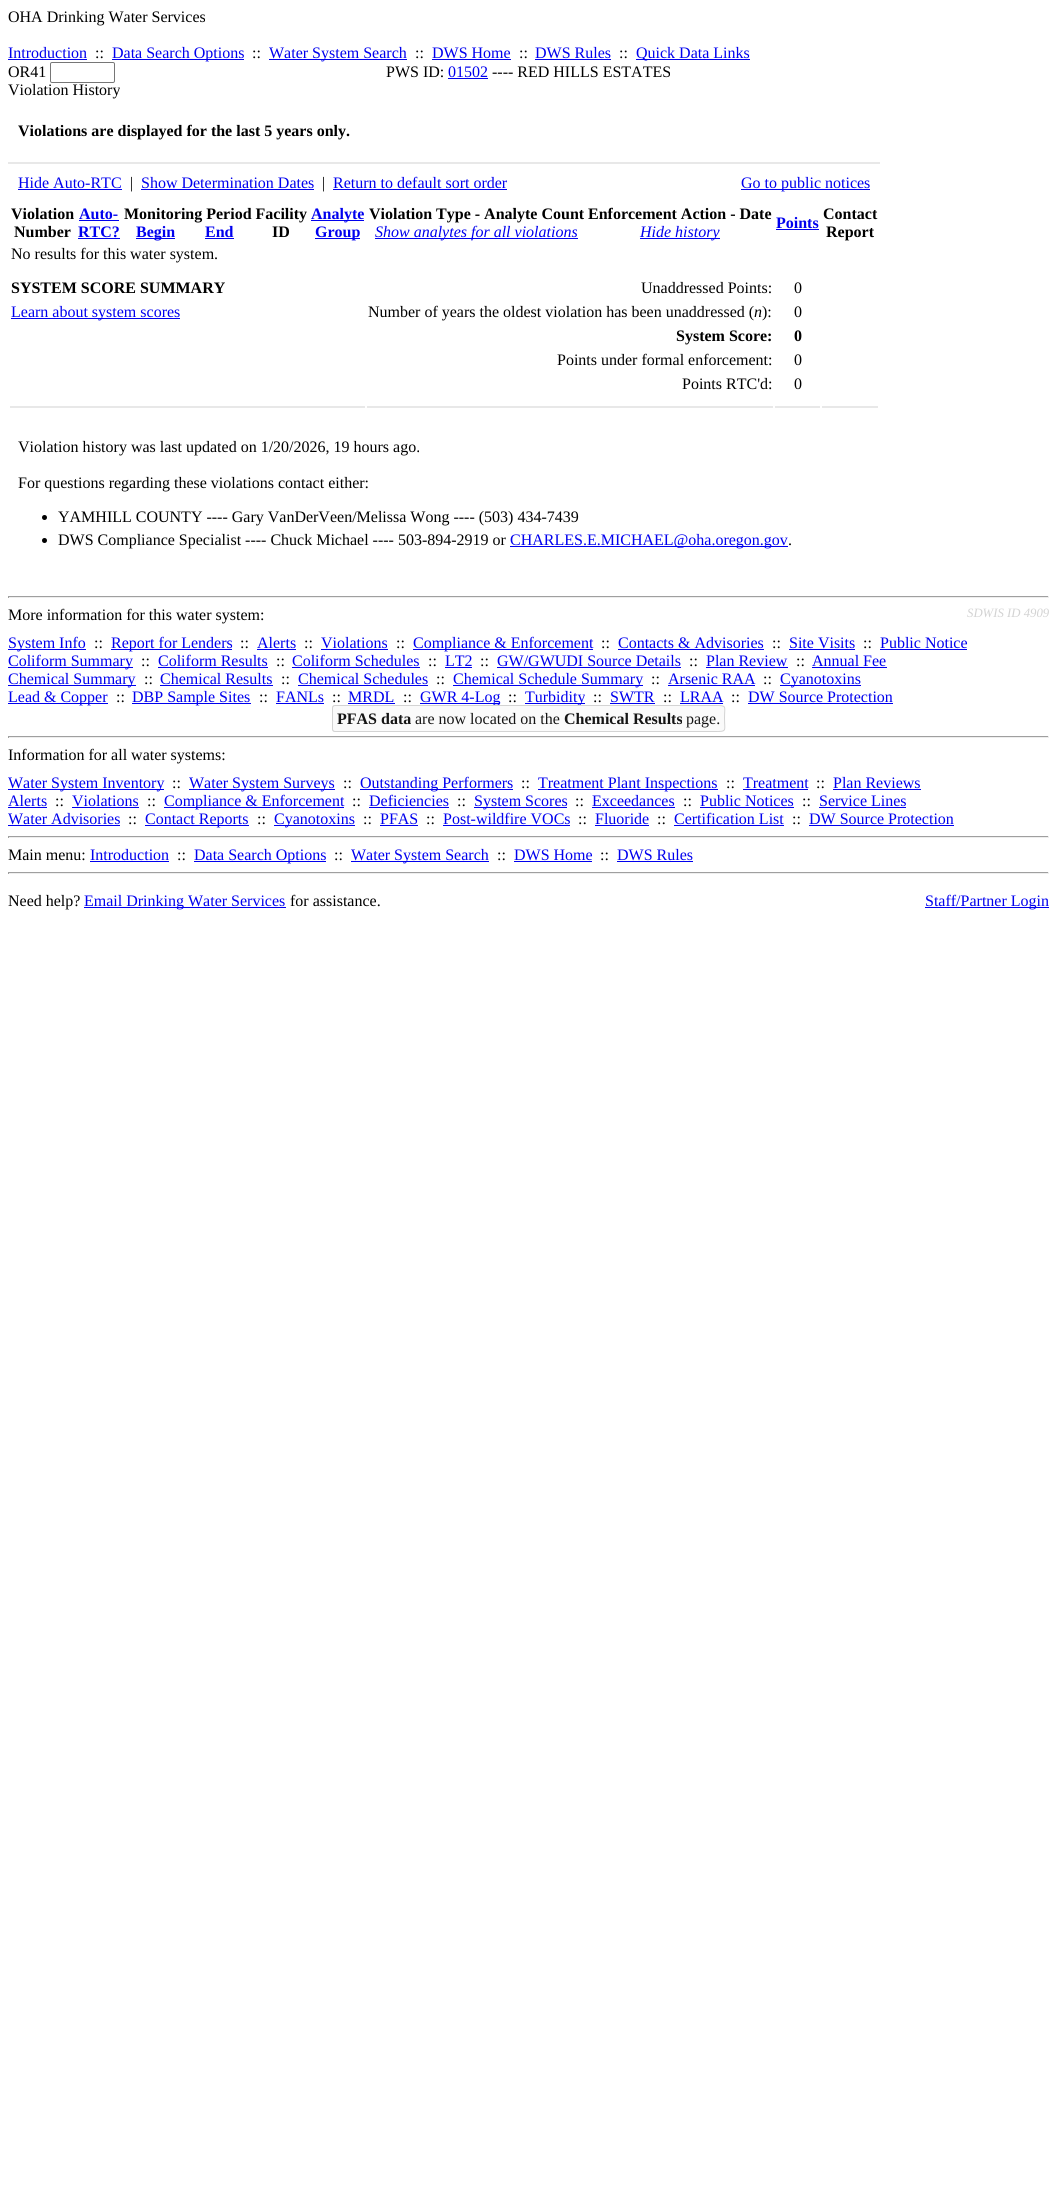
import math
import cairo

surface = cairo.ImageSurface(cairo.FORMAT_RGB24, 1057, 2204)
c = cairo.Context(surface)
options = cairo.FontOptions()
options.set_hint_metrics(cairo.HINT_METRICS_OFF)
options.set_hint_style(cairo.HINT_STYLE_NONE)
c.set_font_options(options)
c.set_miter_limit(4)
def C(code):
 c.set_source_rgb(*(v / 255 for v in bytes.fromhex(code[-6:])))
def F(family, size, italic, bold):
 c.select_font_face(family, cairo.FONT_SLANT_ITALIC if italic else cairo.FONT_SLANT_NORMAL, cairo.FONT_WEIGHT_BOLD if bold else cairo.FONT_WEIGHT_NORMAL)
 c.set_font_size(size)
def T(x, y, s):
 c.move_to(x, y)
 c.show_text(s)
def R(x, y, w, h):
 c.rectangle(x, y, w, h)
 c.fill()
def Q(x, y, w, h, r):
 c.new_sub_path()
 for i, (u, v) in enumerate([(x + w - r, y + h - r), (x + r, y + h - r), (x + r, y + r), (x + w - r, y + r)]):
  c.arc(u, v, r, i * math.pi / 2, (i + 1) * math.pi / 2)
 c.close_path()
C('ffffff')
c.paint()
F('Liberation Serif',16,0,0)
C('000000')
T(8,22,'OHA Drinking Water Services')
C('0000ee')
T(8,58,'Introduction')
R(8,59,79,1)
C('000000')
T(95,58,'::')
C('0000ee')
R(112,59,132,1)
T(112,58,'Data Search Options')
C('000000')
T(252,58,'::')
C('0000ee')
R(269,59,138,1)
T(269,58,'Water System Search')
C('000000')
T(415,58,'::')
C('0000ee')
T(432,58,'DWS Home')
R(432,59,79,1)
C('000000')
T(519,58,'::')
C('0000ee')
T(535,58,'DWS Rules')
R(535,59,76,1)
C('000000')
T(619,58,'::')
C('0000ee')
R(636,59,114,1)
T(636,58,'Quick Data Links')
C('000000')
T(8,77,'OR41')
Q(50.5,62.5,64,20,1.5)
C('767676')
c.set_line_width(1)
c.stroke()
C('000000')
T(386,77,'PWS ID:')
C('0000ee')
T(448,77,'01502')
R(448,78,40,1)
C('000000')
T(492,77,'---- RED HILLS ESTATES')
T(8,95,'Violation History')
F('Liberation Serif',16,0,1)
T(18,136,'Violations are displayed for the last 5 years only.')
C('e8e8e8')
R(8,162,872,2)
F('Liberation Serif',16,0,0)
C('0000ee')
T(18,188,'Hide Auto-RTC')
R(18,189,104,1)
C('000000')
T(130,188,'|')
C('0000ee')
T(141,188,'Show Determination Dates')
R(141,189,173,1)
C('000000')
T(322,188,'|')
C('0000ee')
T(333,188,'Return to default sort order')
R(333,189,174,1)
R(741,189,129,1)
T(741,188,'Go to public notices')
F('Liberation Serif',16,0,1)
C('000000')
T(11,219,'Violation')
T(14,237,'Number')
C('0000ee')
T(79,219,'Auto-')
R(79,220,40,1)
T(78,237,'RTC?')
R(78,238,42,1)
C('000000')
T(124,219,'Monitoring Period Facility')
C('0000ee')
R(136,238,39,1)
T(136,237,'Begin')
T(205,237,'End')
R(205,238,29,1)
R(311,220,53,1)
T(311,219,'Analyte')
R(315,238,45,1)
T(315,237,'Group')
C('000000')
T(369,219,'Violation Type - Analyte Count')
C('0000ee')
R(375,238,203,1)
F('Liberation Serif',16,1,0)
T(375,237,'Show analytes for all violations')
F('Liberation Serif',16,0,1)
C('000000')
T(588,219,'Enforcement Action - Date')
C('0000ee')
R(640,238,80,1)
F('Liberation Serif',16,1,0)
T(640,237,'Hide history')
F('Liberation Serif',16,0,1)
T(776,228,'Points')
R(776,229,43,1)
C('000000')
T(823,219,'Contact')
T(826,237,'Report')
T(272,237,'ID')
F('Liberation Serif',16,0,0)
T(11,259,'No results for this water system.')
C('e8e8e8')
R(10,406,355,2)
F('Liberation Serif',16,0,1)
C('000000')
T(11,293,'SYSTEM SCORE SUMMARY')
C('0000ee')
R(11,318,169,1)
F('Liberation Serif',16,0,0)
T(11,317,'Learn about system scores')
C('e8e8e8')
R(367,406,406,2)
C('000000')
T(641,293,'Unaddressed Points:')
T(368,317,'Number of years the oldest violation has been unaddressed (')
F('Liberation Serif',16,1,0)
T(754,317,'n')
F('Liberation Serif',16,0,0)
T(762,317,'):')
F('Liberation Serif',16,0,1)
T(676,341,'System Score:')
F('Liberation Serif',16,0,0)
T(557,365,'Points under formal enforcement:')
T(682,389,'Points RTC\'d:')
C('e8e8e8')
R(775,406,45,2)
C('000000')
T(794,293,'0')
T(794,317,'0')
F('Liberation Serif',16,0,1)
T(794,341,'0')
F('Liberation Serif',16,0,0)
T(794,365,'0')
T(794,389,'0')
C('e8e8e8')
R(822,406,56,2)
C('000000')
T(18,452,'Violation history was last updated on 1/20/2026, 19 hours ago.')
T(18,488,'For questions regarding these violations contact either:')
c.new_path()
c.arc(44.5,517.5,2.5,0,2 * math.pi)
c.fill()
T(58,522,'YAMHILL COUNTY ---- Gary VanDerVeen/Melissa Wong ---- (503) 434-7439')
c.new_path()
c.arc(44.5,540.5,2.5,0,2 * math.pi)
c.fill()
T(58,545,'DWS Compliance Specialist ---- Chuck Michael ---- 503-894-2919 or')
C('0000ee')
R(510,546,278,1)
T(510,545,'CHARLES.E.MICHAEL@oha.oregon.gov')
C('000000')
T(788,545,'.')
C('9f9f9f')
R(8,596,1041,1)
C('eeeeee')
R(1048,596,1,2)
R(8,597,1041,1)
C('9f9f9f')
R(8,596,1,2)
C('000000')
T(8,620,'More information for this water system:')
F('Liberation Serif',12.75,1,0)
C('d3d3d3')
T(967,617,'SDWIS ID 4909')
C('0000ee')
R(8,649,78,1)
F('Liberation Serif',16,0,0)
T(8,648,'System Info')
C('000000')
T(94,648,'::')
C('0000ee')
R(111,649,121,1)
T(111,648,'Report for Lenders')
C('000000')
T(240,648,'::')
C('0000ee')
T(257,648,'Alerts')
R(257,649,39,1)
C('000000')
T(304,648,'::')
C('0000ee')
T(321,648,'Violations')
R(321,649,67,1)
C('000000')
T(396,648,'::')
C('0000ee')
R(413,649,180,1)
T(413,648,'Compliance & Enforcement')
C('000000')
T(601,648,'::')
C('0000ee')
T(618,648,'Contacts & Advisories')
R(618,649,146,1)
C('000000')
T(772,648,'::')
C('0000ee')
T(789,648,'Site Visits')
R(789,649,66,1)
C('000000')
T(863,648,'::')
C('0000ee')
T(880,648,'Public Notice')
R(880,649,87,1)
R(8,667,125,1)
T(8,666,'Coliform Summary')
C('000000')
T(141,666,'::')
C('0000ee')
T(158,666,'Coliform Results')
R(158,667,110,1)
C('000000')
T(276,666,'::')
C('0000ee')
T(292,666,'Coliform Schedules')
R(292,667,128,1)
C('000000')
T(428,666,'::')
C('0000ee')
T(445,666,'LT2')
R(445,667,27,1)
C('000000')
T(480,666,'::')
C('0000ee')
T(497,666,'GW/GWUDI Source Details')
R(497,667,184,1)
C('000000')
T(689,666,'::')
C('0000ee')
T(706,666,'Plan Review')
R(706,667,82,1)
C('000000')
T(796,666,'::')
C('0000ee')
T(812,666,'Annual Fee')
R(812,667,75,1)
R(8,685,128,1)
T(8,684,'Chemical Summary')
C('000000')
T(144,684,'::')
C('0000ee')
T(160,684,'Chemical Results')
R(160,685,113,1)
C('000000')
T(281,684,'::')
C('0000ee')
T(298,684,'Chemical Schedules')
R(298,685,130,1)
C('000000')
T(436,684,'::')
C('0000ee')
R(453,685,190,1)
T(453,684,'Chemical Schedule Summary')
C('000000')
T(651,684,'::')
C('0000ee')
T(668,684,'Arsenic RAA')
R(668,685,87,1)
C('000000')
T(763,684,'::')
C('0000ee')
R(780,685,81,1)
T(780,684,'Cyanotoxins')
R(8,703,100,1)
T(8,702,'Lead & Copper')
C('000000')
T(116,702,'::')
C('0000ee')
R(132,703,119,1)
T(132,702,'DBP Sample Sites')
C('000000')
T(259,702,'::')
C('0000ee')
T(276,702,'FANLs')
R(276,703,48,1)
C('000000')
T(332,702,'::')
C('0000ee')
T(348,702,'MRDL')
R(348,703,47,1)
C('000000')
T(403,702,'::')
C('0000ee')
R(420,703,80,1)
T(420,702,'GWR 4-Log')
C('000000')
T(508,702,'::')
C('0000ee')
R(525,703,60,1)
T(525,702,'Turbidity')
C('000000')
T(593,702,'::')
C('0000ee')
T(610,702,'SWTR')
R(610,703,45,1)
C('000000')
T(663,702,'::')
C('0000ee')
T(680,702,'LRAA')
R(680,703,43,1)
C('000000')
T(731,702,'::')
C('0000ee')
T(748,702,'DW Source Protection')
R(748,703,145,1)
C('fafafa')
c.new_path()
c.move_to(335,705)
c.line_to(411,705)
c.line_to(411,732)
c.line_to(335,732)
c.curve_to(333.5,732,332,730.5,332,729)
c.line_to(332,708)
c.curve_to(332,706.5,333.5,705,335,705)
c.close_path()
c.fill()
C('d3d3d3')
c.set_fill_rule(cairo.FILL_RULE_EVEN_ODD)
c.new_path()
c.move_to(335,705)
c.line_to(411,705)
c.line_to(411,732)
c.line_to(335,732)
c.curve_to(333,732,332,731,332,729)
c.line_to(332,708)
c.curve_to(332,706,333,705,335,705)
c.close_path()
c.move_to(335,706)
c.line_to(411,706)
c.line_to(411,731)
c.line_to(335,731)
c.curve_to(334,731,333,730,333,729)
c.line_to(333,708)
c.curve_to(333,707,334,706,335,706)
c.close_path()
c.fill()
F('Liberation Serif',16,0,1)
C('151515')
T(337,724,'PFAS data')
C('fafafa')
R(411,706,271,25)
C('d3d3d3')
R(411,705,271,1)
F('Liberation Serif',16,0,0)
C('151515')
T(415,724,'are now located on the')
F('Liberation Serif',16,0,1)
T(564,724,'Chemical Results')
C('fafafa')
c.new_path()
c.move_to(682,705)
c.line_to(722,705)
c.curve_to(723.5,705,725,706.5,725,708)
c.line_to(725,729)
c.curve_to(725,730.5,723.5,732,722,732)
c.line_to(682,732)
c.close_path()
c.fill()
C('d3d3d3')
c.new_path()
c.move_to(682,705)
c.line_to(715,705)
c.curve_to(728,705,725,706,725,718)
c.curve_to(725,731,728,732,715,732)
c.line_to(682,732)
c.close_path()
c.move_to(682,706)
c.line_to(715,706)
c.curve_to(727,706,724,706,724,718)
c.curve_to(724,731,727,731,715,731)
c.line_to(682,731)
c.close_path()
c.fill()
F('Liberation Serif',16,0,0)
C('151515')
T(686,724,'page.')
C('d3d3d3')
R(411,731,271,1)
C('9f9f9f')
R(8,736,1041,1)
C('eeeeee')
R(1048,736,1,2)
R(8,737,1041,1)
C('9f9f9f')
R(8,736,1,2)
C('000000')
T(8,760,'Information for all water systems:')
C('0000ee')
R(8,789,156,1)
T(8,788,'Water System Inventory')
C('000000')
T(172,788,'::')
C('0000ee')
R(189,789,146,1)
T(189,788,'Water System Surveys')
C('000000')
T(343,788,'::')
C('0000ee')
R(360,789,153,1)
T(360,788,'Outstanding Performers')
C('000000')
T(521,788,'::')
C('0000ee')
R(538,789,180,1)
T(538,788,'Treatment Plant Inspections')
C('000000')
T(726,788,'::')
C('0000ee')
T(743,788,'Treatment')
R(743,789,65,1)
C('000000')
T(816,788,'::')
C('0000ee')
T(833,788,'Plan Reviews')
R(833,789,88,1)
T(8,806,'Alerts')
R(8,807,39,1)
C('000000')
T(55,806,'::')
C('0000ee')
T(72,806,'Violations')
R(72,807,67,1)
C('000000')
T(147,806,'::')
C('0000ee')
R(164,807,180,1)
T(164,806,'Compliance & Enforcement')
C('000000')
T(352,806,'::')
C('0000ee')
T(369,806,'Deficiencies')
R(369,807,80,1)
C('000000')
T(457,806,'::')
C('0000ee')
R(474,807,93,1)
T(474,806,'System Scores')
C('000000')
T(575,806,'::')
C('0000ee')
T(592,806,'Exceedances')
R(592,807,83,1)
C('000000')
T(683,806,'::')
C('0000ee')
T(700,806,'Public Notices')
R(700,807,94,1)
C('000000')
T(802,806,'::')
C('0000ee')
T(819,806,'Service Lines')
R(819,807,87,1)
T(8,824,'Water Advisories')
R(8,825,112,1)
C('000000')
T(128,824,'::')
C('0000ee')
R(145,825,104,1)
T(145,824,'Contact Reports')
C('000000')
T(257,824,'::')
C('0000ee')
R(274,825,81,1)
T(274,824,'Cyanotoxins')
C('000000')
T(363,824,'::')
C('0000ee')
T(380,824,'PFAS')
R(380,825,38,1)
C('000000')
T(426,824,'::')
C('0000ee')
T(443,824,'Post-wildfire VOCs')
R(443,825,127,1)
C('000000')
T(578,824,'::')
C('0000ee')
T(595,824,'Fluoride')
R(595,825,54,1)
C('000000')
T(657,824,'::')
C('0000ee')
T(674,824,'Certification List')
R(674,825,110,1)
C('000000')
T(792,824,'::')
C('0000ee')
T(809,824,'DW Source Protection')
R(809,825,145,1)
C('9f9f9f')
R(8,836,1041,1)
C('eeeeee')
R(1048,836,1,2)
R(8,837,1041,1)
C('9f9f9f')
R(8,836,1,2)
C('000000')
T(8,860,'Main menu:')
C('0000ee')
T(90,860,'Introduction')
R(90,861,79,1)
C('000000')
T(177,860,'::')
C('0000ee')
R(194,861,132,1)
T(194,860,'Data Search Options')
C('000000')
T(334,860,'::')
C('0000ee')
R(351,861,138,1)
T(351,860,'Water System Search')
C('000000')
T(497,860,'::')
C('0000ee')
T(514,860,'DWS Home')
R(514,861,78,1)
C('000000')
T(600,860,'::')
C('0000ee')
T(617,860,'DWS Rules')
R(617,861,76,1)
C('9f9f9f')
R(8,872,1041,1)
C('eeeeee')
R(1048,872,1,2)
R(8,873,1041,1)
C('9f9f9f')
R(8,872,1,2)
C('000000')
T(8,906,'Need help?')
C('0000ee')
R(84,907,202,1)
T(84,906,'Email Drinking Water Services')
C('000000')
T(290,906,'for assistance.')
C('0000ee')
R(925,907,124,1)
T(925,906,'Staff/Partner Login')
surface.write_to_png('o.png')
